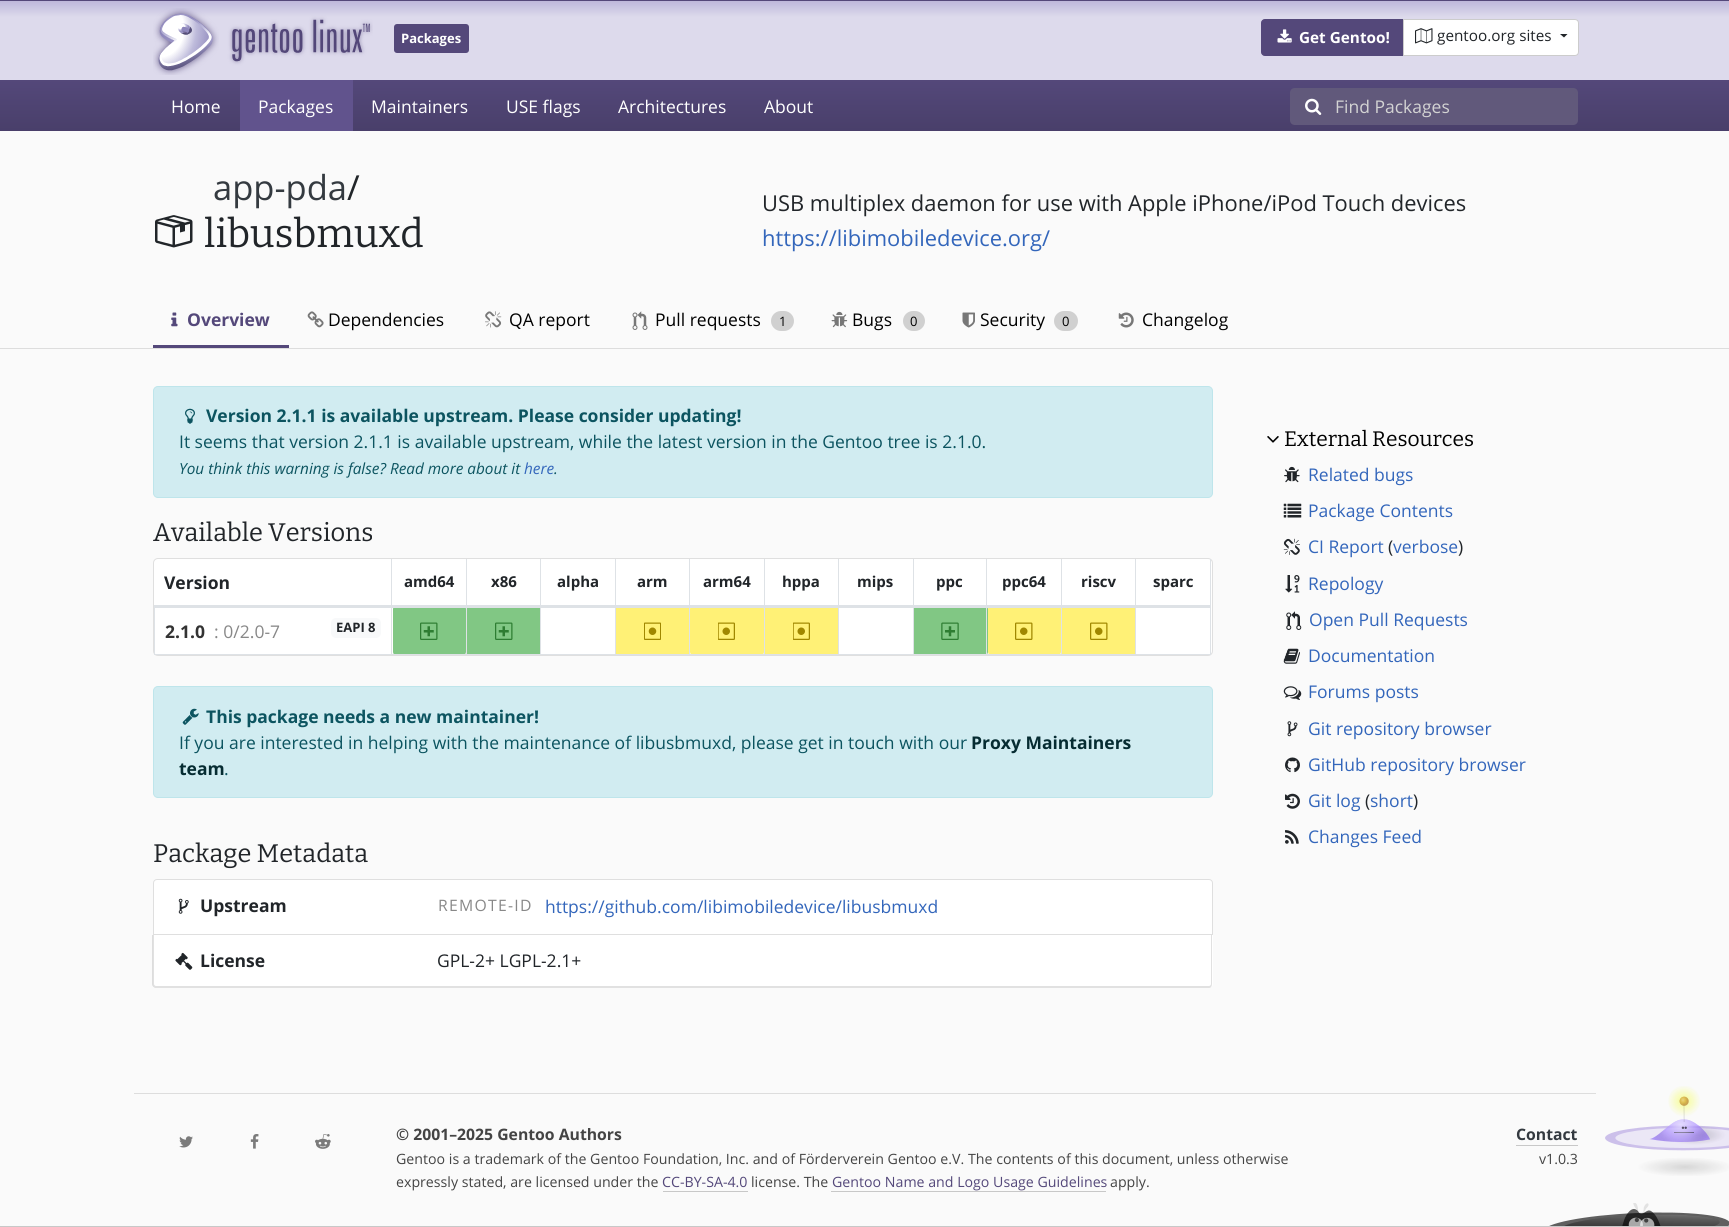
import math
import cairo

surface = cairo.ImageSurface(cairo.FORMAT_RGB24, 1729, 1227)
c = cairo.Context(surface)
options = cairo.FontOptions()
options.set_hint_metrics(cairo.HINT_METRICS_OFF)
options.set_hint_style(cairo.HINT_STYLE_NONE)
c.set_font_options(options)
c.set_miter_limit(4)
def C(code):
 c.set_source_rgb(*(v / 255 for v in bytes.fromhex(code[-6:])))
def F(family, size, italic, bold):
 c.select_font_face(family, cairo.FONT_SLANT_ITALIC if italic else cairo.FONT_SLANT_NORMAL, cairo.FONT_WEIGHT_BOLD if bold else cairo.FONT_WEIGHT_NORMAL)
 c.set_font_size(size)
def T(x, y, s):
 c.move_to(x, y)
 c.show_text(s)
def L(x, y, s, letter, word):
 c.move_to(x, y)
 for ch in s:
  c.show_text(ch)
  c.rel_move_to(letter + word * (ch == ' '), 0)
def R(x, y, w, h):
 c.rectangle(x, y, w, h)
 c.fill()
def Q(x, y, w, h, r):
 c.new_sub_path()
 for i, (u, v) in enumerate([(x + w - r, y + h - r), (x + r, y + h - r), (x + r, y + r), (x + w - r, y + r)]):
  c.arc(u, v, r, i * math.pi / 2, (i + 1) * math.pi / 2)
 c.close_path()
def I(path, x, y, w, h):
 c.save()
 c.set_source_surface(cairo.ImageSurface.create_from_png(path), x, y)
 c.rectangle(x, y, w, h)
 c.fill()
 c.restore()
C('fafafa')
c.paint()
C('54487a')
R(0,0,1729,1)
gradient = cairo.LinearGradient(865,1.2,865,80)
gradient.add_color_stop_rgba(0,0.745,0.722,0.859,1)
gradient.add_color_stop_rgba(.2,0.867,0.855,0.925,1)
c.set_source(gradient)
R(0,1,1729,79)
I('1.png',153,8,220,67)
C('54487a')
Q(394,24,75,29,3)
c.fill()
F('Open Sans',13,0,1)
C('ffffff')
T(401,43,'Packages')
C('54487a')
c.new_path()
c.move_to(1265,19.5)
c.line_to(1403.5,19.5)
c.line_to(1403.5,55.5)
c.line_to(1265,55.5)
c.curve_to(1263,55.5,1261.5,54,1261.5,52)
c.line_to(1261.5,23)
c.curve_to(1261.5,21,1263,19.5,1265,19.5)
c.close_path()
c.fill_preserve()
c.set_line_width(1)
c.stroke()
I('2.png',1277,29,15,14)
F('Open Sans',15.3,0,1)
C('ffffff')
T(1299,43,'Get Gentoo!')
c.new_path()
c.move_to(1403.5,19.5)
c.line_to(1575,19.5)
c.curve_to(1577,19.5,1578.5,21,1578.5,23)
c.line_to(1578.5,52)
c.curve_to(1578.5,54,1577,55.5,1575,55.5)
c.line_to(1403.5,55.5)
c.close_path()
c.fill_preserve()
C('cccccc')
c.stroke()
I('3.png',1415,28,18,16)
F('Open Sans',15.3,0,0)
C('212529')
T(1437,41,'gentoo.org sites')
c.new_path()
c.move_to(1560,34)
c.line_to(1567.5,34)
c.line_to(1564,37.5)
c.close_path()
c.fill()
gradient = cairo.LinearGradient(865,80,865,131)
gradient.add_color_stop_rgba(0,0.329,0.282,0.478,1)
gradient.add_color_stop_rgba(1,0.286,0.247,0.416,1)
c.set_source(gradient)
R(0,80,1729,51)
F('Open Sans',17.5,0,0)
C('ffffff')
T(171,113,'Home')
C('61538d')
R(240,80,113,51)
C('ffffff')
T(258,113,'Packages')
T(371,113,'Maintainers')
T(506,113,'USE flags')
T(618,113,'Architectures')
T(764,113,'About')
C('61597b')
c.new_path()
c.move_to(1295,88)
c.line_to(1336,88)
c.line_to(1336,125)
c.line_to(1295,125)
c.curve_to(1292,125,1290,123,1290,120)
c.line_to(1290,93)
c.curve_to(1290,90,1292,88,1295,88)
c.close_path()
c.fill()
I('4.png',1305,98,17,17)
c.new_path()
c.move_to(1335,88)
c.line_to(1573,88)
c.curve_to(1576,88,1578,90,1578,93)
c.line_to(1578,120)
c.curve_to(1578,123,1576,125,1573,125)
c.line_to(1335,125)
c.close_path()
c.fill()
C('d3d3d3')
T(1335,113,'Find Packages')
F('Open Sans',34.5,0,0)
C('343a40')
T(213,200,'app-pda')
C('212529')
T(347,200,'/')
I('5.png',155,215,38,33)
F('Bitter',39.5,0,0)
T(204,247,'libusbmuxd')
F('Open Sans',21.9,0,0)
T(762,211,'USB multiplex daemon for use with Apple iPhone/iPod Touch devices')
C('3366bb')
T(762,246,'https://libimobiledevice.org/')
C('54487a')
R(153,345,136,3)
I('6.png',171,312,7,15)
F('Open Sans',17.5,0,1)
T(187,326,'Overview')
I('7.png',307,311,17,17)
F('Open Sans',17.5,0,0)
C('000000')
T(328,326,'Dependencies')
I('8.png',485,311,17,17)
T(509,326,'QA report')
I('9.png',632,311,16,19)
T(655,326,'Pull requests')
C('d0d0d0')
Q(771,311,23,20,10)
c.fill()
F('Open Sans',13,0,0)
C('000000')
T(779,326,'1')
I('10.png',831,311,17,17)
F('Open Sans',17.5,0,0)
T(852,326,'Bugs')
C('d0d0d0')
Q(903,311,22,20,10)
c.fill()
F('Open Sans',13,0,0)
C('000000')
T(910,326,'0')
I('11.png',962,312,13,16)
F('Open Sans',17.5,0,0)
T(980,326,'Security')
C('d0d0d0')
Q(1054,311,24,20,10)
c.fill()
F('Open Sans',13,0,0)
C('000000')
T(1062,326,'0')
I('12.png',1118,312,16,16)
F('Open Sans',17.5,0,0)
T(1142,326,'Changelog')
C('dddddd')
R(0,348,1729,1)
C('d1ecf1')
Q(153.5,386.5,1059,111,4.5)
c.fill_preserve()
C('bee5eb')
c.stroke()
I('13.png',185,408,10,16)
F('Open Sans',17.5,0,1)
C('0c5460')
T(206,422,'Version 2.1.1 is available upstream. Please consider updating!')
F('Open Sans',17.5,0,0)
T(179,448,'It seems that version 2.1.1 is available upstream, while the latest version in the Gentoo tree is 2.1.0.')
F('Open Sans',15.3,1,0)
T(179,474,'You think this warning is false? Read more about it')
C('3366bb')
T(524,474,'here')
C('0c5460')
T(554,474,'.')
F('Bitter',25.4,0,0)
C('212529')
T(153,541,'Available Versions')
C('ffffff')
Q(153.5,558.5,1059,97,4.5)
c.fill_preserve()
C('dfdfdf')
c.stroke()
F('Open Sans',17.5,0,1)
C('212529')
T(164,589,'Version')
F('Open Sans',15,0,1)
T(404,587,'amd64')
T(491,587,'x86')
T(557,587,'alpha')
T(637,587,'arm')
T(703,587,'arm64')
T(782,587,'hppa')
T(857,587,'mips')
T(936,587,'ppc')
T(1002,587,'ppc64')
T(1081,587,'riscv')
C('81c784')
Q(393,606,73,49,3)
c.fill()
C('fff176')
Q(690,606,74,49,3)
c.fill()
C('81c784')
Q(913,606,75,49,3)
c.fill()
C('fff176')
Q(988,606,73,49,3)
c.fill()
C('dee2e6')
R(1210,559,1,96)
R(1135,654,76,1)
R(1135,559,1,96)
R(1061,654,75,1)
R(1061,559,1,96)
R(986,654,77,1)
R(986,559,1,96)
R(913,654,75,1)
R(913,559,1,96)
R(838,654,76,1)
R(838,559,1,96)
R(764,654,75,1)
R(764,559,1,96)
R(689,654,76,1)
R(689,559,1,96)
R(615,654,75,1)
R(615,559,1,96)
R(540,654,76,1)
R(540,559,1,96)
R(466,654,75,1)
R(466,559,1,96)
R(391,654,77,1)
R(391,559,1,96)
R(154,654,239,1)
R(154,606,1,49)
R(154,605,1057,3)
C('212529')
T(1153,587,'sparc')
F('Open Sans',17.5,0,1)
C('333333')
T(165,638,'2.1.0')
F('Open Sans',17.5,0,0)
C('888888')
T(214,638,': 0/2.0-7')
C('f8f9fa')
Q(331,618,50,20,5)
c.fill()
F('Open Sans',13,0,1)
C('212529')
T(336,632,'EAPI 8')
I('14.png',420,622,18,18)
C('81c784')
R(467,608,73,46)
I('14.png',495,622,18,18)
C('fff176')
R(616,608,73,46)
I('15.png',644,622,17,18)
I('16.png',718,622,17,18)
R(765,608,73,46)
I('16.png',793,622,17,18)
I('17.png',941,622,18,18)
I('18.png',1015,622,18,18)
R(1062,608,73,46)
I('18.png',1090,622,18,18)
C('d1ecf1')
Q(153.5,686.5,1059,111,4.5)
c.fill_preserve()
C('bee5eb')
c.stroke()
I('19.png',182,708,17,17)
F('Open Sans',17.5,0,1)
C('0c5460')
T(206,723,'This package needs a new maintainer!')
F('Open Sans',17.5,0,0)
T(179,749,'If you are interested in helping with the maintenance of libusbmuxd, please get in touch with our')
F('Open Sans',17.5,0,1)
C('062c32')
T(971,749,'Proxy Maintainers')
T(179,775,'team')
F('Open Sans',17.5,0,0)
C('0c5460')
T(224,775,'.')
F('Bitter',25.4,0,0)
C('212529')
T(153,862,'Package Metadata')
C('ffffff')
c.new_path()
c.move_to(157,879.5)
c.line_to(1209,879.5)
c.curve_to(1211,879.5,1212.5,881,1212.5,883)
c.line_to(1212.5,934.5)
c.line_to(153.5,934.5)
c.line_to(153.5,883)
c.curve_to(153.5,881,155,879.5,157,879.5)
c.close_path()
c.fill_preserve()
C('dfdfdf')
c.stroke()
I('20.png',178,898,11,16)
F('Open Sans',17.5,0,1)
C('212529')
T(200,912,'Upstream')
F('Open Sans',15.75,0,0)
C('888888')
L(438,911,'REMOTE-ID',1.25,0)
F('Open Sans',17.5,0,0)
C('3366bb')
T(545,913,'https://github.com/libimobiledevice/libusbmuxd')
C('ffffff')
c.new_path()
c.move_to(153,935)
c.line_to(1213,935)
c.line_to(1213,984)
c.curve_to(1213,986,1211,988,1209,988)
c.line_to(157,988)
c.curve_to(155,988,153,986,153,984)
c.close_path()
c.fill()
c.set_source_rgba(0,0,0,0.12)
c.set_fill_rule(cairo.FILL_RULE_EVEN_ODD)
c.new_path()
c.move_to(152,935)
c.line_to(1212,935)
c.line_to(1212,984)
c.curve_to(1212,986,1211,988,1209,988)
c.line_to(156,988)
c.curve_to(154,988,152,986,152,984)
c.close_path()
c.move_to(154,935)
c.line_to(1211,935)
c.line_to(1211,984)
c.curve_to(1211,985,1210,986,1209,986)
c.line_to(156,986)
c.curve_to(155,986,154,985,154,984)
c.close_path()
c.fill()
I('21.png',175,952,18,18)
F('Open Sans',17.5,0,1)
C('212529')
T(200,967,'License')
F('Open Sans',17.5,0,0)
T(437,967,'GPL-2+ LGPL-2.1+')
I('22.png',1267,436,12,7)
F('Bitter',21,0,0)
C('000000')
T(1284,446,'External Resources')
I('23.png',1284,466,16,17)
F('Open Sans',17.5,0,0)
C('3366bb')
T(1308,481,'Related bugs')
I('24.png',1283,503,19,15)
T(1308,517,'Package Contents')
I('25.png',1283,538,17,17)
T(1308,553,'CI Report')
C('212529')
T(1388,553,'(')
C('3366bb')
T(1393,553,'verbose')
C('212529')
T(1458,553,')')
I('26.png',1285,575,15,18)
C('3366bb')
T(1308,590,'Repology')
I('27.png',1286,611,16,19)
T(1309,626,'Open Pull Requests')
I('28.png',1283,648,17,16)
T(1308,662,'Documentation')
I('29.png',1283,686,19,14)
T(1308,698,'Forums posts')
I('30.png',1287,721,11,16)
T(1308,735,'Git repository browser')
I('31.png',1285,757,15,16)
T(1308,771,'GitHub repository browser')
I('32.png',1285,793,15,16)
T(1308,807,'Git log')
C('212529')
T(1365,807,'(')
C('3366bb')
T(1370,807,'short')
C('212529')
T(1413,807,')')
I('33.png',1285,830,14,14)
C('3366bb')
T(1308,843,'Changes Feed')
I('34.png',1605,1086,124,90)
I('35.png',1549,1203,180,23)
C('c8c8c8')
R(0,1226,1729,1)
C('dddddd')
R(134,1093,1462,1)
I('36.png',179,1136,14,12)
I('37.png',250,1134,9,15)
I('38.png',315,1134,16,15)
F('Open Sans',15.75,0,1)
C('444444')
T(396,1140,'© 2001–2025 Gentoo Authors')
F('Open Sans',14.18,0,0)
T(396,1164,'Gentoo is a trademark of the Gentoo Foundation, Inc. and of Förderverein Gentoo e.V. The contents of this document, unless otherwise')
T(396,1187,'expressly stated, are licensed under the')
C('54487a')
T(662,1187,'CC-BY-SA-4.0')
C('c8c8c8')
R(663,1191,85,1)
C('444444')
T(751,1187,'license. The')
C('54487a')
T(832,1187,'Gentoo Name and Logo Usage Guidelines')
C('c8c8c8')
R(831,1191,275,1)
C('444444')
T(1110,1187,'apply.')
F('Open Sans',15.75,0,1)
C('343a40')
T(1516,1140,'Contact')
C('c8c8c8')
R(1516,1145,62,1)
F('Open Sans',14.18,0,0)
C('444444')
T(1539,1164,'v1.0.3')
surface.write_to_png('o.png')
